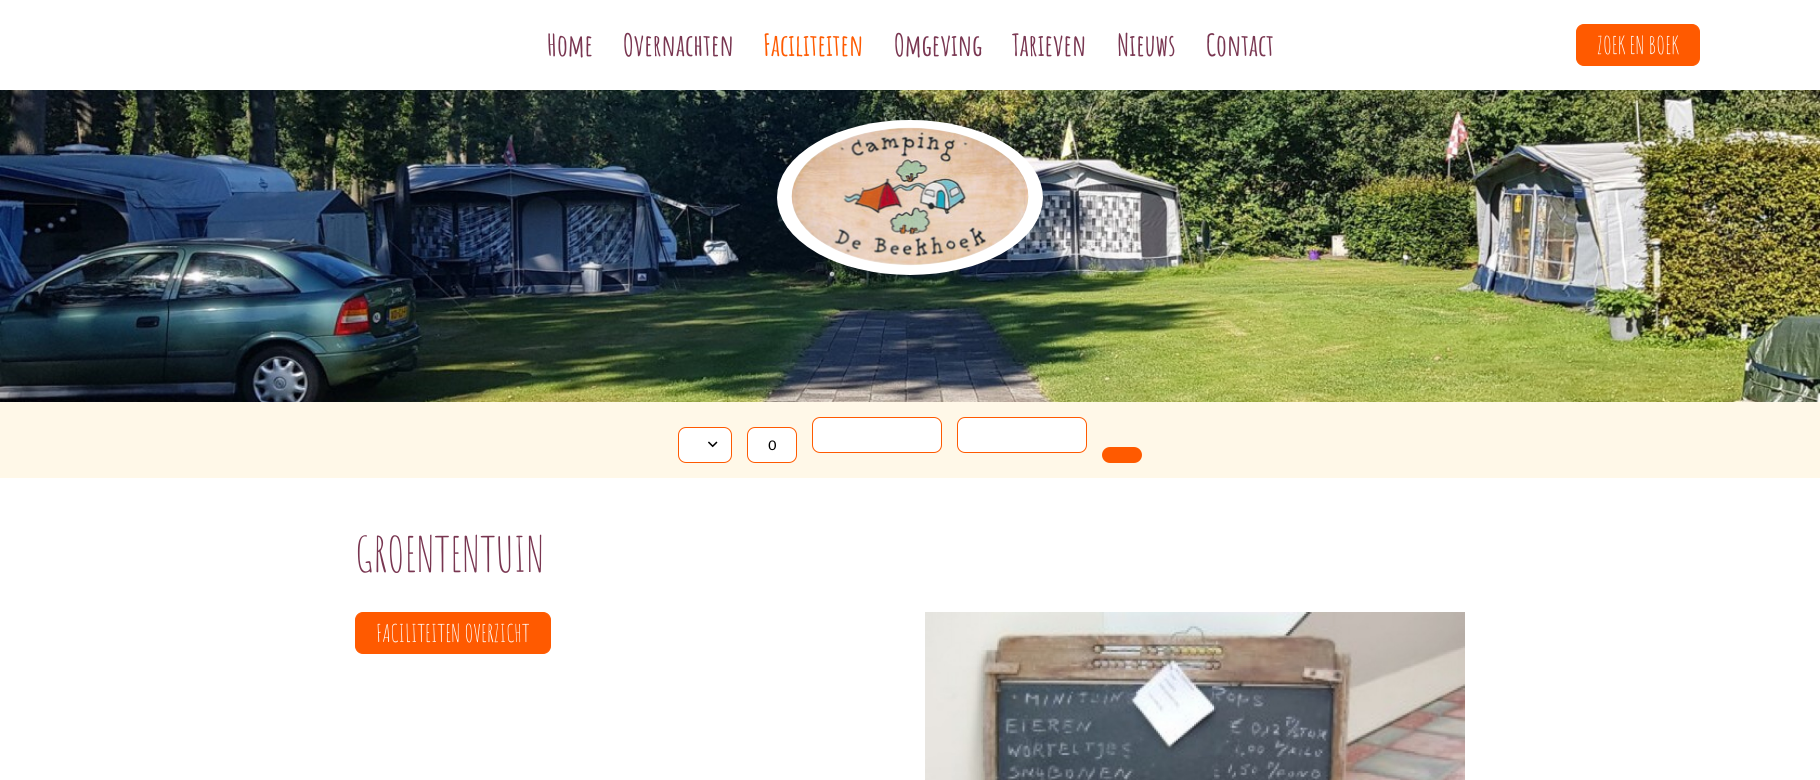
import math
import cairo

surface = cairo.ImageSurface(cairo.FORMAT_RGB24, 1820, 780)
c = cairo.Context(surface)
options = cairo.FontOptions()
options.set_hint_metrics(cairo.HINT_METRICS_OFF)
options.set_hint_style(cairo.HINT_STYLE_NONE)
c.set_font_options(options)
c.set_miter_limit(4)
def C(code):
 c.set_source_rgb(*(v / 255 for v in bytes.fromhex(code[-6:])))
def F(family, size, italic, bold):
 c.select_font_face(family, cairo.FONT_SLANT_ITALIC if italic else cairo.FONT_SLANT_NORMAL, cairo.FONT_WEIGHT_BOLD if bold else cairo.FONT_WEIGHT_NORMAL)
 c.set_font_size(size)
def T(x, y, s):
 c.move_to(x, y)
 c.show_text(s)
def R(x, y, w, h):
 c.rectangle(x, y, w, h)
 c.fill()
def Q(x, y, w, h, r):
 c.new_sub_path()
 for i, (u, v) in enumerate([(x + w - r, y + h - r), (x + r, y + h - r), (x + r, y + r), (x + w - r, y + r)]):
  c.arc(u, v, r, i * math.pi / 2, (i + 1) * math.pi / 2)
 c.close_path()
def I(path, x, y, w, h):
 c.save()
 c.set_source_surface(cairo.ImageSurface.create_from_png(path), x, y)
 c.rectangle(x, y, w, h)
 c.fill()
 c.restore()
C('ffffff')
c.paint()
F('Amatic SC',30,0,1)
C('793651')
T(547,56,'Home')
T(623,56,'Overnachten')
C('ff5a00')
T(763,56,'Faciliteiten')
C('793651')
T(894,56,'Omgeving')
T(1012,56,'Tarieven')
T(1117,56,'Nieuws')
T(1206,56,'Contact')
C('ff5a00')
Q(1576.5,24.5,123,41,7.5)
c.fill_preserve()
c.set_line_width(1)
c.stroke()
F('Amatic SC',24,0,0)
C('ffffff')
T(1597,54,'ZOEK EN BOEK')
I('2.png',0,90,1820,312)
I('1.png',777,120,266,155)
C('fff8e8')
R(0,402,1820,76)
C('ffffff')
Q(678.5,427.5,53,35,7.5)
c.fill_preserve()
C('ff5a00')
c.stroke()
I('3.png',708,441,10,7)
C('ffffff')
Q(747.5,427.5,49,35,7.5)
c.fill_preserve()
C('ff5a00')
c.stroke()
F('Mukta',15,0,0)
C('000000')
T(768,450,'0')
C('ffffff')
Q(812.5,417.5,129,35,7.5)
c.fill_preserve()
C('ff5a00')
c.stroke()
C('ffffff')
Q(957.5,417.5,129,35,7.5)
c.fill_preserve()
C('ff5a00')
c.stroke()
Q(1102,447,40,16,8)
c.fill()
F('Amatic SC',48,0,0)
C('793651')
T(355,572,'GROENTENTUIN')
C('ff5a00')
Q(355.5,612.5,195,41,7.5)
c.fill_preserve()
c.stroke()
F('Amatic SC',24,0,0)
C('ffffff')
T(376,642,'FACILITEITEN OVERZICHT')
I('4.png',925,612,540,168)
surface.write_to_png('o.png')
